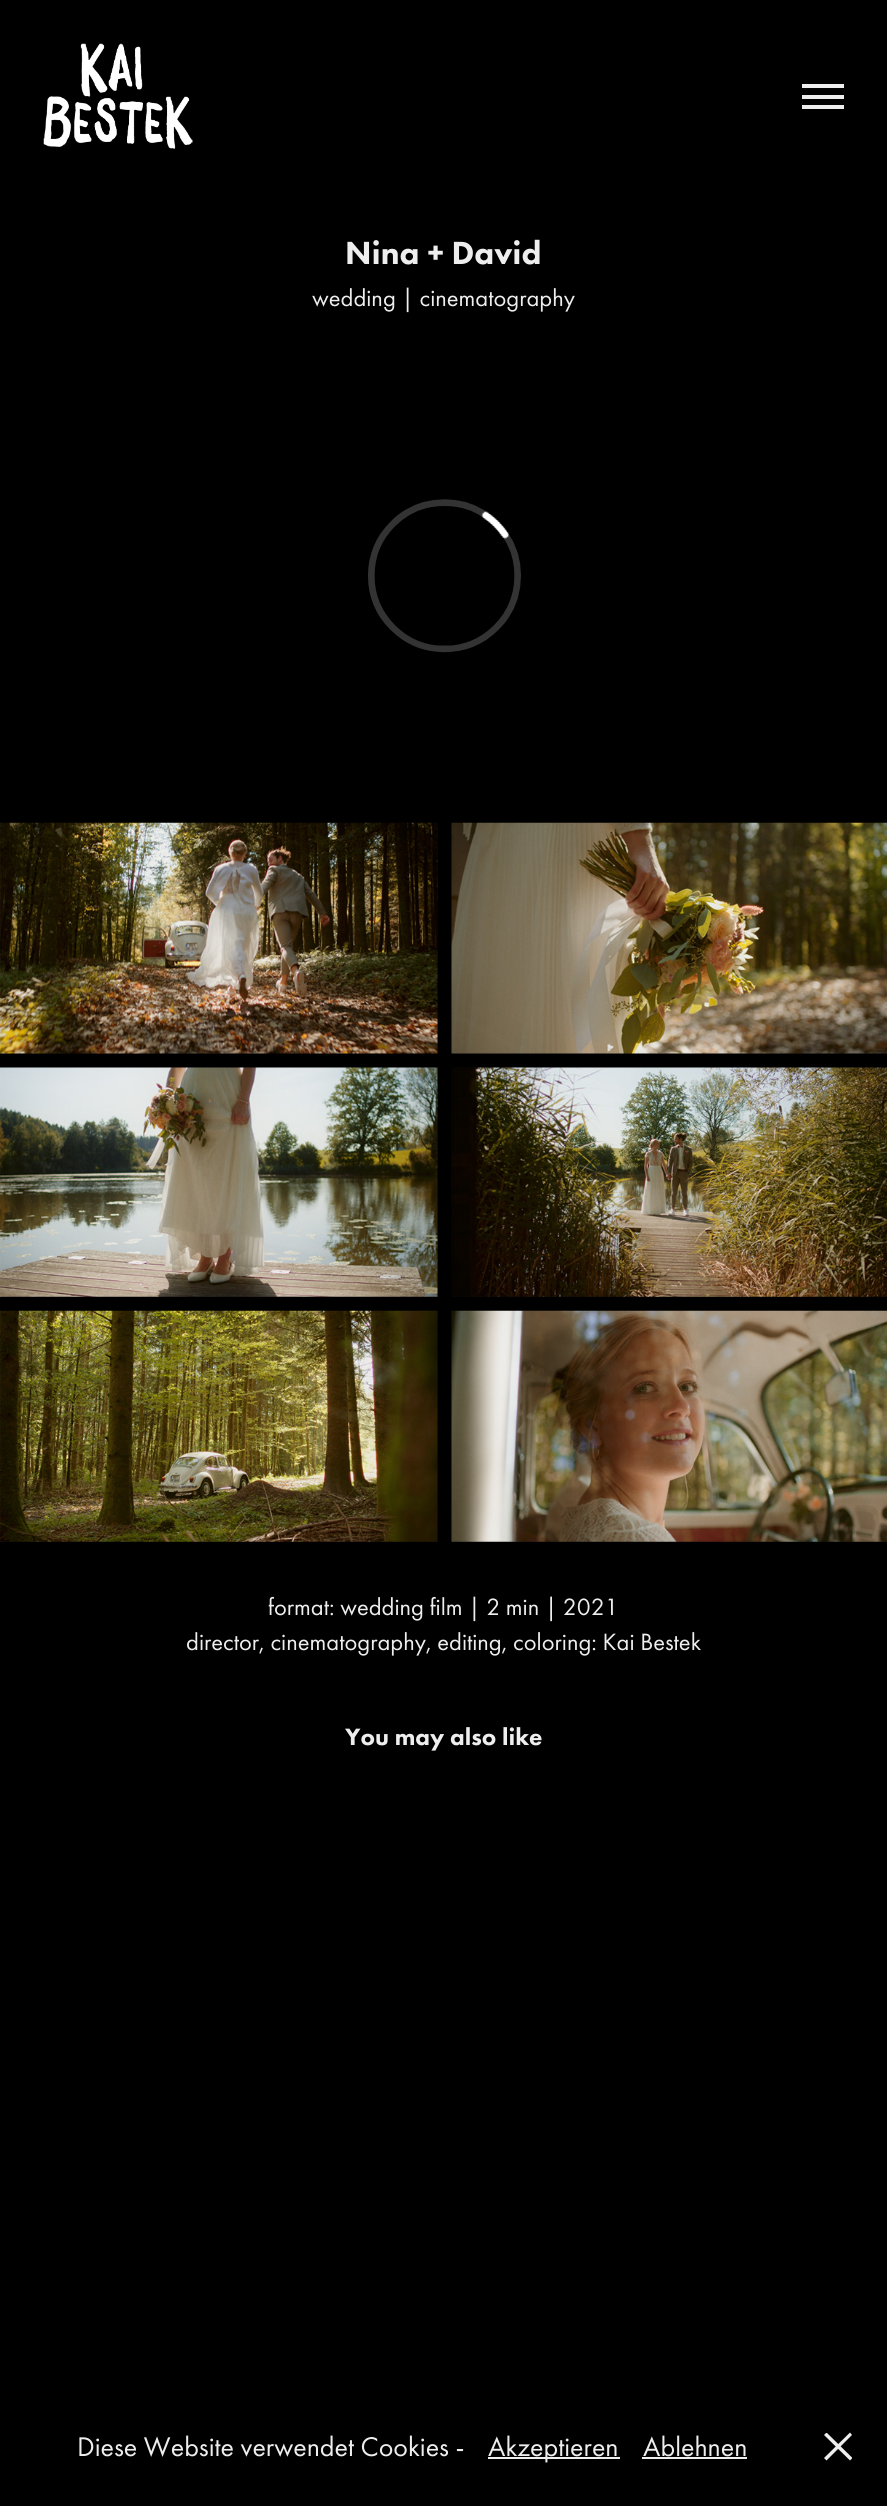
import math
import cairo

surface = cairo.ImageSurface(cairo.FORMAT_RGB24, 887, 2506)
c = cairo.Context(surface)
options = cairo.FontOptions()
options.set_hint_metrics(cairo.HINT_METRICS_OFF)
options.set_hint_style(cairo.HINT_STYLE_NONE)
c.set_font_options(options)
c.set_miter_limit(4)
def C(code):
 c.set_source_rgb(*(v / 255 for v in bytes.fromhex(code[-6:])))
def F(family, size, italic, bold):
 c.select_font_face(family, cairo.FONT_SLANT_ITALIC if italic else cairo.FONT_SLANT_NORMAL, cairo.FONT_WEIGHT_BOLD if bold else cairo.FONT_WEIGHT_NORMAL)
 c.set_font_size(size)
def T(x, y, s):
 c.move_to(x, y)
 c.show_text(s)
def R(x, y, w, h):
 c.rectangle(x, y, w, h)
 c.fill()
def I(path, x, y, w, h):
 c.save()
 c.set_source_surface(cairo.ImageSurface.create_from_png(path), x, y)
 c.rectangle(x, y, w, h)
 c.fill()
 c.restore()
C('000000')
c.paint()
I('1.png',43,43,150,106)
C('eeeeee')
R(802,84,42,4)
R(802,95,42,4)
R(802,105,42,4)
F('Futura PT Black',33.25,0,0)
T(345,264,'Nina + David')
F('Futura PT',24.5,0,0)
T(312,306,'wedding | cinematography')
I('2.png',368,499,153,154)
I('3.png',0,822,438,232)
I('4.png',451,822,436,232)
I('5.png',0,1067,438,230)
I('6.png',451,1067,436,230)
I('7.png',0,1310,438,232)
I('8.png',451,1310,436,232)
T(268,1615,'format: wedding film | 2 min | 2021')
T(186,1650,'director, cinematography, editing, coloring: Kai Bestek')
F('Futura PT Black',24.5,0,0)
T(345,1745,'You may also like')
F('Futura PT',28,0,0)
T(77,2456,'Diese Website verwendet Cookies -')
R(488,2457,132,2)
T(488,2456,'Akzeptieren')
T(643,2456,'Ablehnen')
R(642,2457,105,2)
c.save()
c.rectangle(824,2433,28,28)
c.clip()
c.new_path()
c.move_to(824,2435)
c.line_to(826.5,2432.5)
c.line_to(852.5,2458)
c.line_to(850,2460.5)
c.close_path()
c.fill()
c.restore()
c.new_path()
c.move_to(826.5,2460.5)
c.line_to(824,2458)
c.line_to(850,2432.5)
c.line_to(852,2435)
c.close_path()
c.fill()
surface.write_to_png('o.png')
